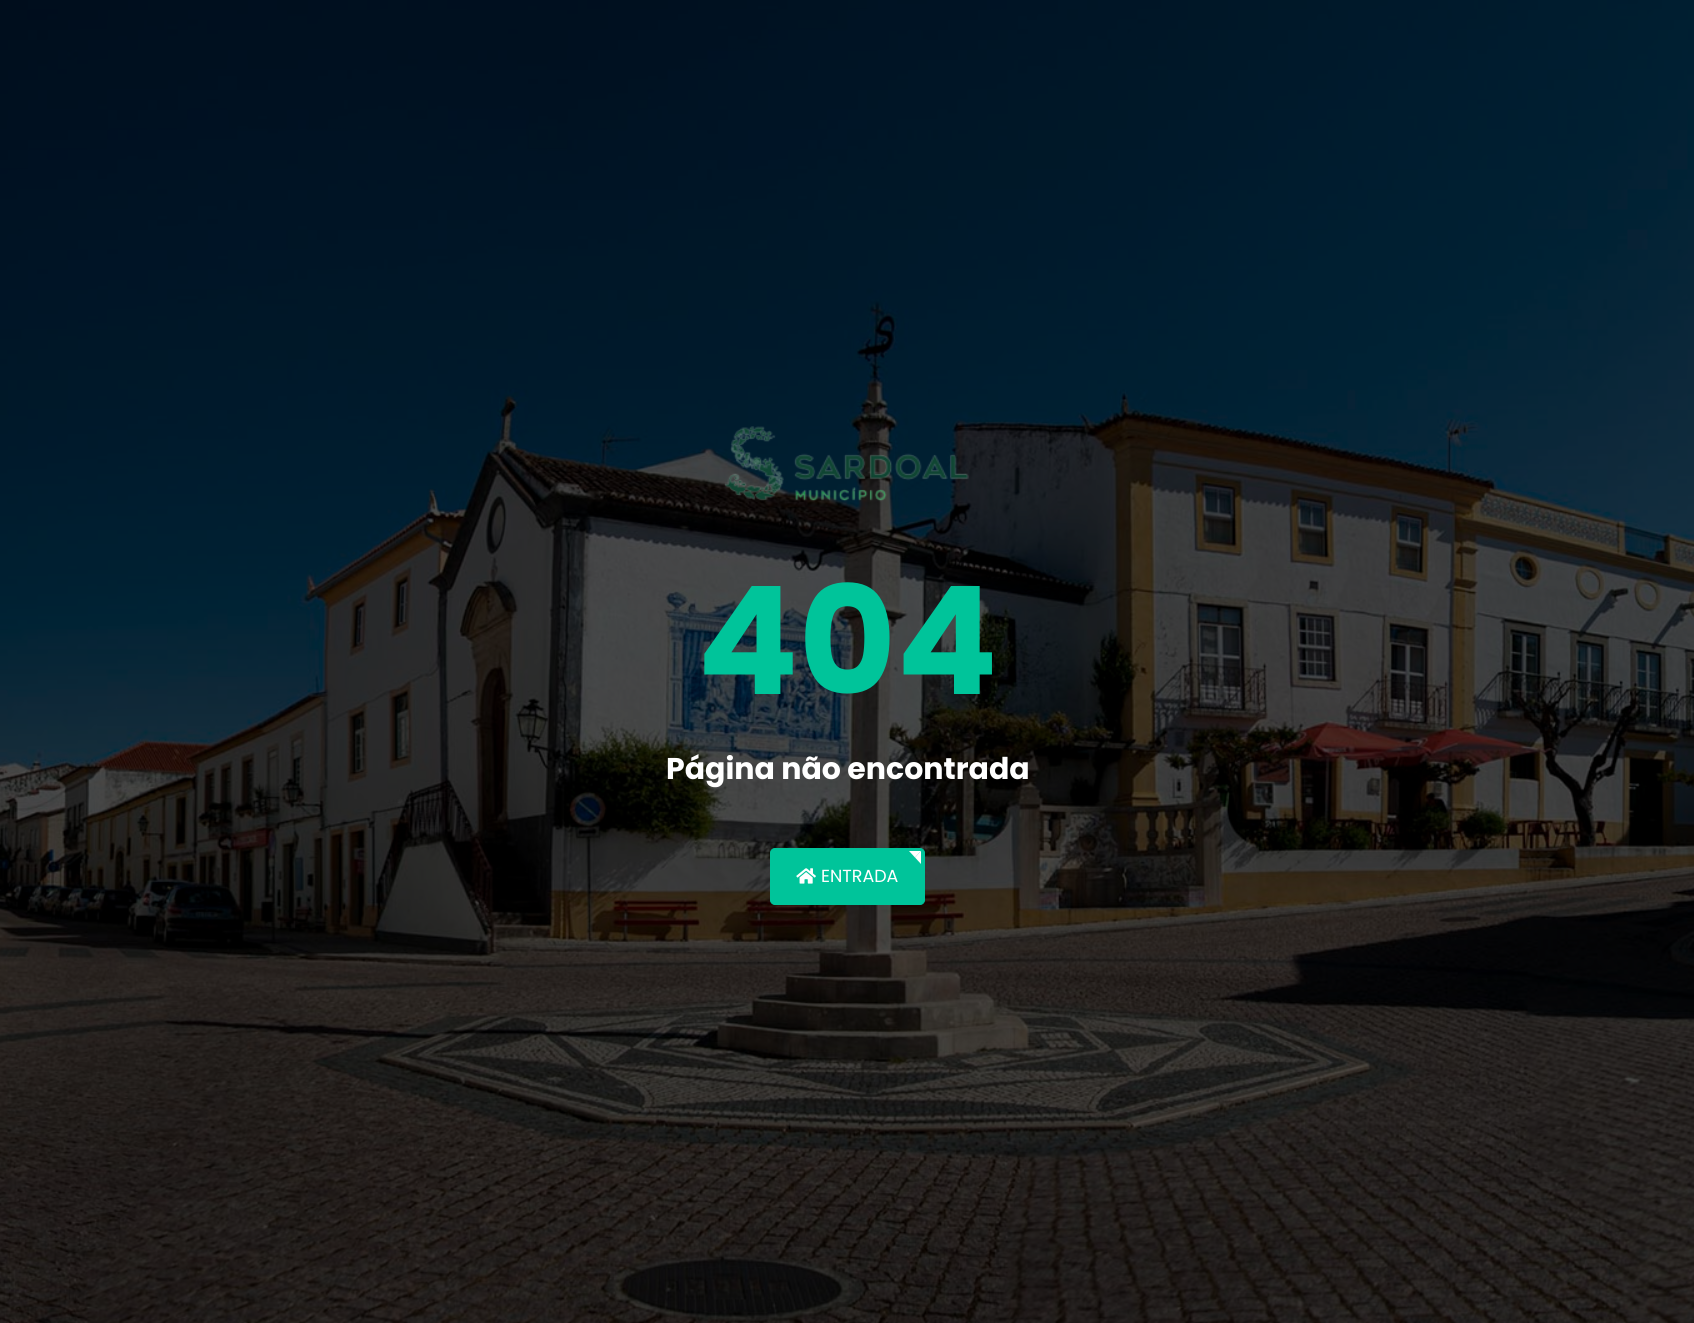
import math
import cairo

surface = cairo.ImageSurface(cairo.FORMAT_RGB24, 1694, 1323)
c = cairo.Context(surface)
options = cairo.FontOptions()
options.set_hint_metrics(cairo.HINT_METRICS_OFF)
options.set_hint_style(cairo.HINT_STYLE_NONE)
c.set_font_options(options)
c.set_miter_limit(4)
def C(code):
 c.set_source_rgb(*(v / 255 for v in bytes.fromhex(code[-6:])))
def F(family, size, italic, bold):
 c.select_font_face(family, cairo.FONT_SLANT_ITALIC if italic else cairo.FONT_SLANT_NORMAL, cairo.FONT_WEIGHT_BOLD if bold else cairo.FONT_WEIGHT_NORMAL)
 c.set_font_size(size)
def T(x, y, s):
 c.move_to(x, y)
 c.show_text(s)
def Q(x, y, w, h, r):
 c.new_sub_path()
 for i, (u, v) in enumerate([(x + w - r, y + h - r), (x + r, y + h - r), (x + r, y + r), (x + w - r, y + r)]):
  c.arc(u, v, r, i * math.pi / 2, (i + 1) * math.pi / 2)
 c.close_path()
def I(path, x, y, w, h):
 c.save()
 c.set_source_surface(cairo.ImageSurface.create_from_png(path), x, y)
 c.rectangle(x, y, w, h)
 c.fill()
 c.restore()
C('ffffff')
c.paint()
I('1.png',0,0,1694,1323)
I('2.png',724,426,245,76)
F('Poppins',150,0,1)
C('00c49a')
T(697,694,'404')
F('Poppins',30,0,1)
C('ffffff')
T(666,779,'Página não encontrada')
C('00c49a')
Q(770.5,848.5,154,56,4.5)
c.fill_preserve()
c.set_line_width(1)
c.stroke()
C('ffffff')
c.new_path()
c.move_to(909,851)
c.line_to(921,851)
c.line_to(915,857.5)
c.close_path()
c.fill()
c.new_path()
c.move_to(921,851)
c.line_to(921,864)
c.line_to(915,857.5)
c.close_path()
c.fill()
I('3.png',796,868,20,16)
F('Poppins',17.5,0,0)
T(821,882,'ENTRADA')
surface.write_to_png('o.png')
